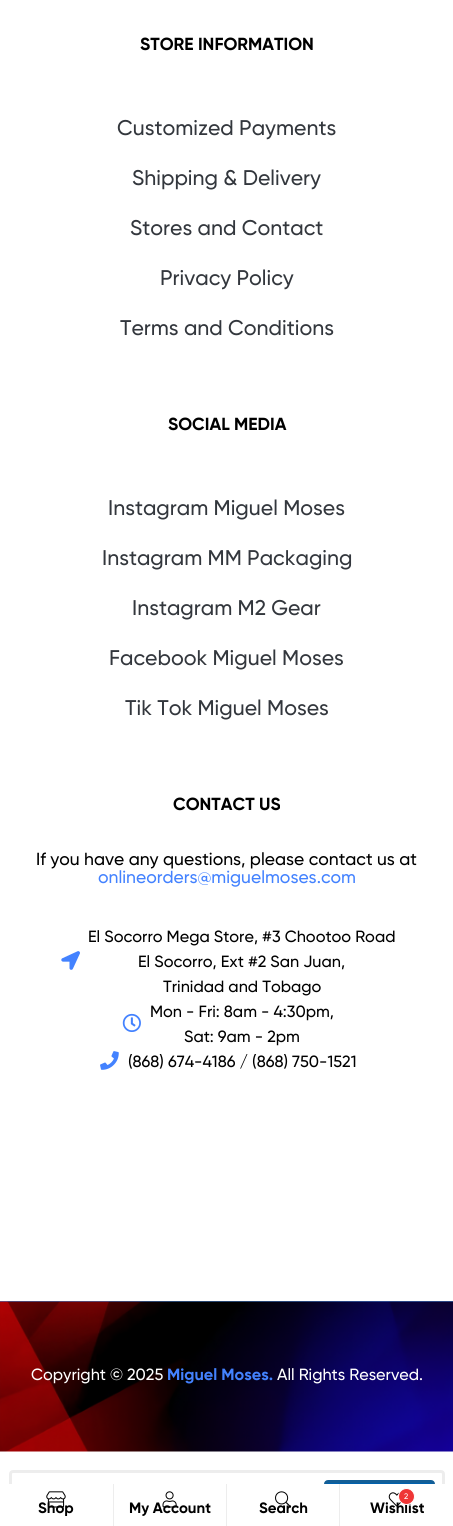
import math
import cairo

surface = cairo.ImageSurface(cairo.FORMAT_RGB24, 453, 1526)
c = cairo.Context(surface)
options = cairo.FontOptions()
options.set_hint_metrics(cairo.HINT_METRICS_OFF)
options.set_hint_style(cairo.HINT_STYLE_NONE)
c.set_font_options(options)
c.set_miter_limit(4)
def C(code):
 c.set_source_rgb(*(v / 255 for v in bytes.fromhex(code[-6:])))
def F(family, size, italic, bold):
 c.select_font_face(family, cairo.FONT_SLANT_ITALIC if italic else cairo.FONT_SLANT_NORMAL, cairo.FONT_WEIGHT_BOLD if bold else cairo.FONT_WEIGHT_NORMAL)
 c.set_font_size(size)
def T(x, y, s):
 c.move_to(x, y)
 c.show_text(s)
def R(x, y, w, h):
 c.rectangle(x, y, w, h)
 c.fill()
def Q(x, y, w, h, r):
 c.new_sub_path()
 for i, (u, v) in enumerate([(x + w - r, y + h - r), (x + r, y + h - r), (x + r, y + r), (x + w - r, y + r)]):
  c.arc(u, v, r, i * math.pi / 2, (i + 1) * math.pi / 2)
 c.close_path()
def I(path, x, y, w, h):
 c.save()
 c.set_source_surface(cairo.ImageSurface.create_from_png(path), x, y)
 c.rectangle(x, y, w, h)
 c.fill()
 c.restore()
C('ffffff')
c.paint()
F('Gilroy',17.5,0,1)
C('000000')
T(140,50,'STORE INFORMATION')
F('Gilroy Medium',21.25,0,0)
C('33373d')
T(117,135,'Customized Payments')
T(132,185,'Shipping & Delivery')
T(130,235,'Stores and Contact')
T(160,285,'Privacy Policy')
T(120,335,'Terms and Conditions')
F('Gilroy',17.5,0,1)
C('000000')
T(168,430,'SOCIAL MEDIA')
F('Gilroy Medium',21.25,0,0)
C('33373d')
T(108,515,'Instagram Miguel Moses')
T(102,565,'Instagram MM Packaging')
T(132,615,'Instagram M2 Gear')
T(109,665,'Facebook Miguel Moses')
T(125,715,'Tik Tok Miguel Moses')
F('Gilroy',17.5,0,1)
C('000000')
T(173,810,'CONTACT US')
F('Gilroy Medium',17.5,0,0)
T(36,865,'If you have any questions, please contact us at')
C('4382ff')
T(98,883,'onlineorders@miguelmoses.com')
I('1.png',61,951,19,19)
F('Gilroy Medium',16.25,0,0)
C('000000')
T(88,942,'El Socorro Mega Store, #3 Chootoo Road')
T(138,967,'El Socorro, Ext #2 San Juan,')
T(163,992,'Trinidad and Tobago')
I('2.png',122,1013,19,19)
T(150,1017,'Mon - Fri: 8am - 4:30pm,')
T(184,1042,'Sat: 9am - 2pm')
I('3.png',100,1051,19,19)
T(128,1067,'(868) 674-4186 / (868) 750-1521')
C('004aad')
R(0,1301,453,1)
I('4.png',0,1301,453,151)
c.set_source_rgba(1,1,1,0.15)
R(0,1301,453,1)
C('ffffff')
T(31,1380,'Copyright © 2025')
F('Gilroy',16.25,0,1)
C('4382ff')
T(167,1380,'Miguel Moses.')
F('Gilroy Medium',16.25,0,0)
C('ffffff')
T(277,1380,'All Rights Reserved.')
Q(10.5,1471.5,433,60,2.5)
C('ededed')
c.set_line_width(3)
c.stroke()
C('ffffff')
R(9,1484,3,42)
C('ededed')
R(113,1484,1,42)
F('Gilroy',15,0,1)
C('000000')
T(38,1513,'Shop')
I('5.png',46,1491,20,17)
C('ededed')
R(226,1484,1,42)
C('000000')
T(129,1513,'My Account')
I('6.png',162,1491,15,17)
C('0061ae')
Q(325.5,1481.5,108,42,2.5)
c.fill_preserve()
C('135e96')
c.stroke()
C('ffffff')
R(324,1484,15,41)
C('ededed')
R(339,1484,1,42)
C('000000')
T(259,1513,'Search')
I('7.png',275,1491,17,17)
C('ffffff')
R(340,1484,105,42)
C('000000')
T(370,1513,'Wishlist')
I('8.png',388,1492,13,15)
C('ef3636')
c.arc(406.5,1496.5,8,0,2 * math.pi)
c.fill_preserve()
C('ffffff')
c.set_line_width(1)
c.stroke()
F('Gilroy Medium',8,0,0)
T(404,1499,'2')
surface.write_to_png('o.png')
